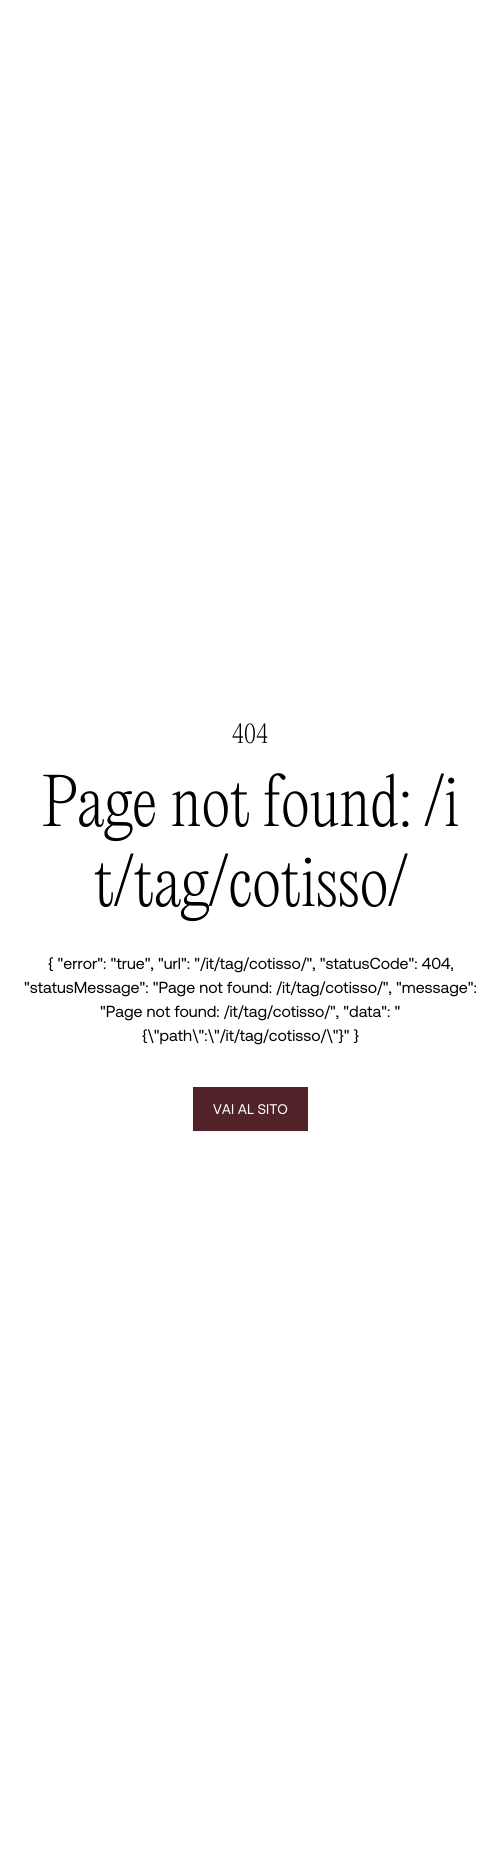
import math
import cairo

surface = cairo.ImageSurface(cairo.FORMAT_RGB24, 501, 1851)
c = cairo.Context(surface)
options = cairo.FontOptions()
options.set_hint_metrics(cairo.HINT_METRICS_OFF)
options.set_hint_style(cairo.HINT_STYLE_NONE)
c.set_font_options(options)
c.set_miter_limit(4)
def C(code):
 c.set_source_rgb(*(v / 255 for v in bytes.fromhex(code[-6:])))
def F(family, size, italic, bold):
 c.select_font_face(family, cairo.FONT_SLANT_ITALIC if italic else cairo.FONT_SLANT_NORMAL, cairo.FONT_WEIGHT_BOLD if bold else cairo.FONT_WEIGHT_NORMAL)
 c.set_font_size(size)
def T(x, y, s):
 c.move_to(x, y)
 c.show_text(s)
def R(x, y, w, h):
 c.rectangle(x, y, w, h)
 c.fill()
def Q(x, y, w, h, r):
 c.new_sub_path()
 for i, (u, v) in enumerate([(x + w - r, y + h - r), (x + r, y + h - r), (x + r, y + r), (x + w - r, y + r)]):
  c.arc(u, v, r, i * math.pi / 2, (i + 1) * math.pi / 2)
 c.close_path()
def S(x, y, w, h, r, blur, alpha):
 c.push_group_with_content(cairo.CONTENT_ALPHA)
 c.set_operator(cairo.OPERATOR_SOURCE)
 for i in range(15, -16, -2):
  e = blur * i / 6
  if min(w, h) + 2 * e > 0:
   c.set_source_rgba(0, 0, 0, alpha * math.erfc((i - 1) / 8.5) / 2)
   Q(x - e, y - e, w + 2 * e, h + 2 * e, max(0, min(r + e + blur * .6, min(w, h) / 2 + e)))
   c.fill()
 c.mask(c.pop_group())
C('ffffff')
c.paint()
F('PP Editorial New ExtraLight',24,0,0)
C('000000')
T(232,743,'404')
F('PP Editorial New ExtraLight',64,0,0)
T(42,826,'Page not found: /i')
T(94,906,'t/tag/cotisso/')
F('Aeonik',16,0,0)
T(48,969,'{ "error": "true", "url": "/it/tag/cotisso/", "statusCode": 404,')
T(24,993,'"statusMessage": "Page not found: /it/tag/cotisso/", "message":')
T(100,1017,'"Page not found: /it/tag/cotisso/", "data": "')
T(142,1041,'{\\"path\\":\\"/it/tag/cotisso/\\"}" }')
C('000000')
S(193,1088,115,44,0,1,.05)
C('512227')
R(193,1087,115,44)
F('Aeonik',14,0,0)
C('ffffff')
T(213,1114,'VAI AL SITO')
surface.write_to_png('o.png')
